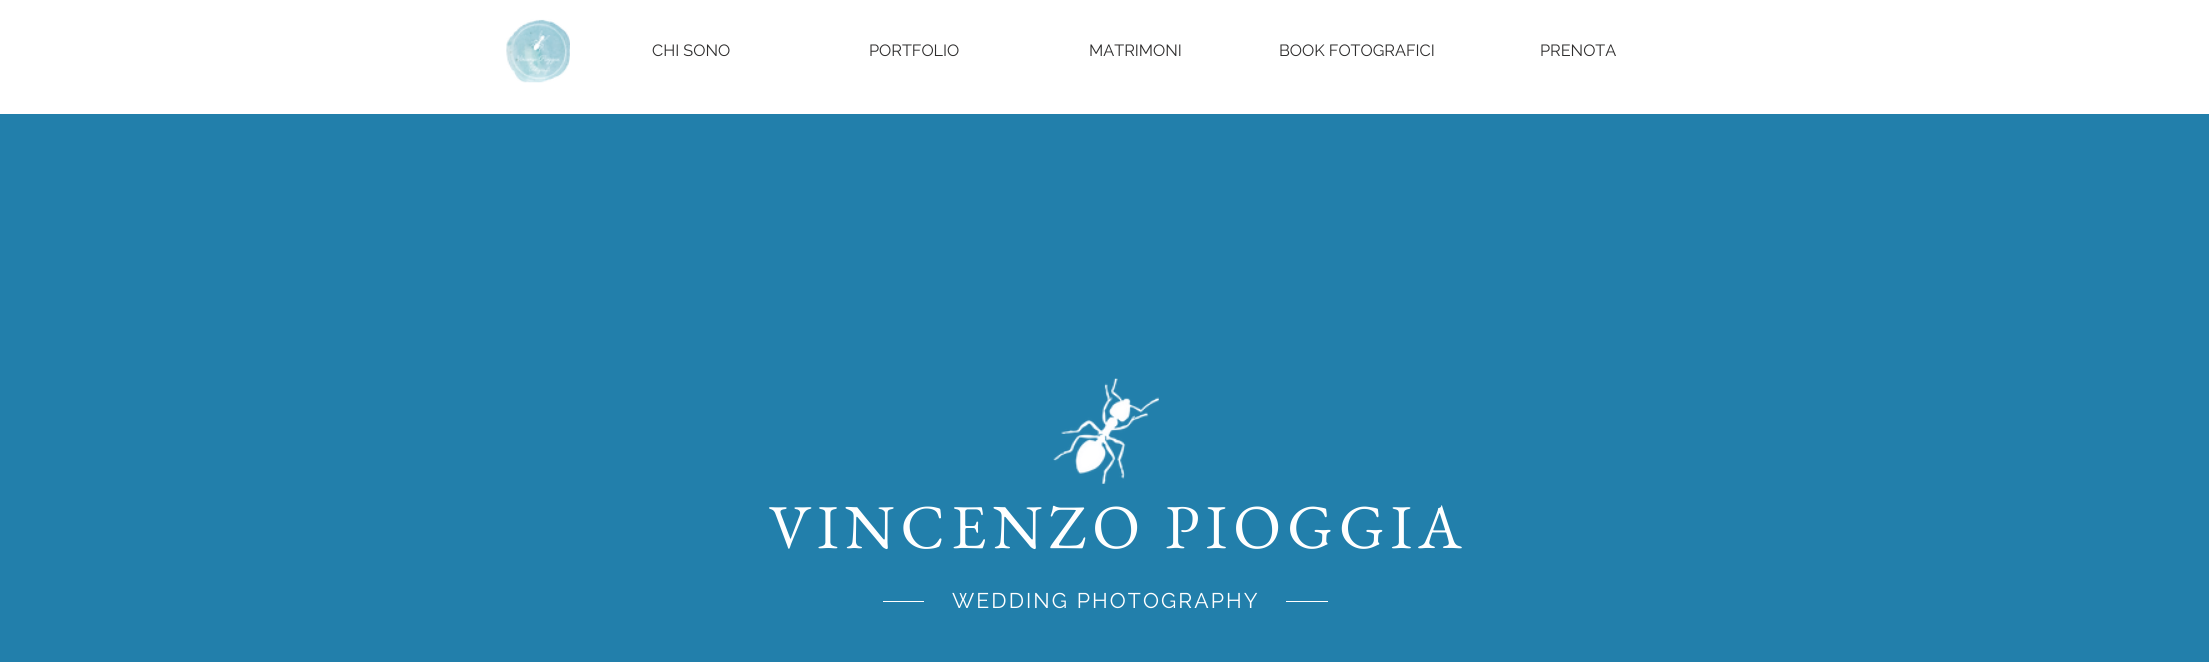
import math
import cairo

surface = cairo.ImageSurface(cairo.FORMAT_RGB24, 2209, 662)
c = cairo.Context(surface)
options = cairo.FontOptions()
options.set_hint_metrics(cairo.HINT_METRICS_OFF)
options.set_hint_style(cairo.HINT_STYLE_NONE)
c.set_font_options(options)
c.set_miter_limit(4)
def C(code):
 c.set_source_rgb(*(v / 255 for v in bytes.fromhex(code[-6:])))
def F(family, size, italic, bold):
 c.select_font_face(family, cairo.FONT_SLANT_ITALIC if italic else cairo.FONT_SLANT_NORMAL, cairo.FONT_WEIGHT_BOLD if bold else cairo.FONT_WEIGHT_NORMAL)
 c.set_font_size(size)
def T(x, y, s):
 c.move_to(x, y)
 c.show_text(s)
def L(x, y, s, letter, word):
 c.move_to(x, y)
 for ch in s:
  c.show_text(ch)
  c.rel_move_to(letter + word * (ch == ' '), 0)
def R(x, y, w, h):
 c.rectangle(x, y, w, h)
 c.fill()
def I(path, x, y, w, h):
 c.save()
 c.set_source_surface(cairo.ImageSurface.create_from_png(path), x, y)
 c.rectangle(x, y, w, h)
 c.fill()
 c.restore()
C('ffffff')
c.paint()
I('1.png',506,19,64,64)
F('Raleway',16.25,0,0)
C('2f2e2e')
T(652,56,'CHI SONO')
T(869,56,'PORTFOLIO')
T(1089,56,'MATRIMONI')
T(1279,56,'BOOK FOTOGRAFICI')
T(1540,56,'PRENOTA')
C('227fab')
R(0,114,2209,548)
I('2.png',1053,378,106,106)
F('EB Garamond',62.5,0,0)
C('ffffff')
L(769,548,'VINCENZO PIOGGIA',6.25,0)
R(883,601,41,1)
F('Raleway',21.25,0,0)
L(952,608,'WEDDING PHOTOGRAPHY',2.1,0)
R(1286,601,42,1)
surface.write_to_png('o.png')
